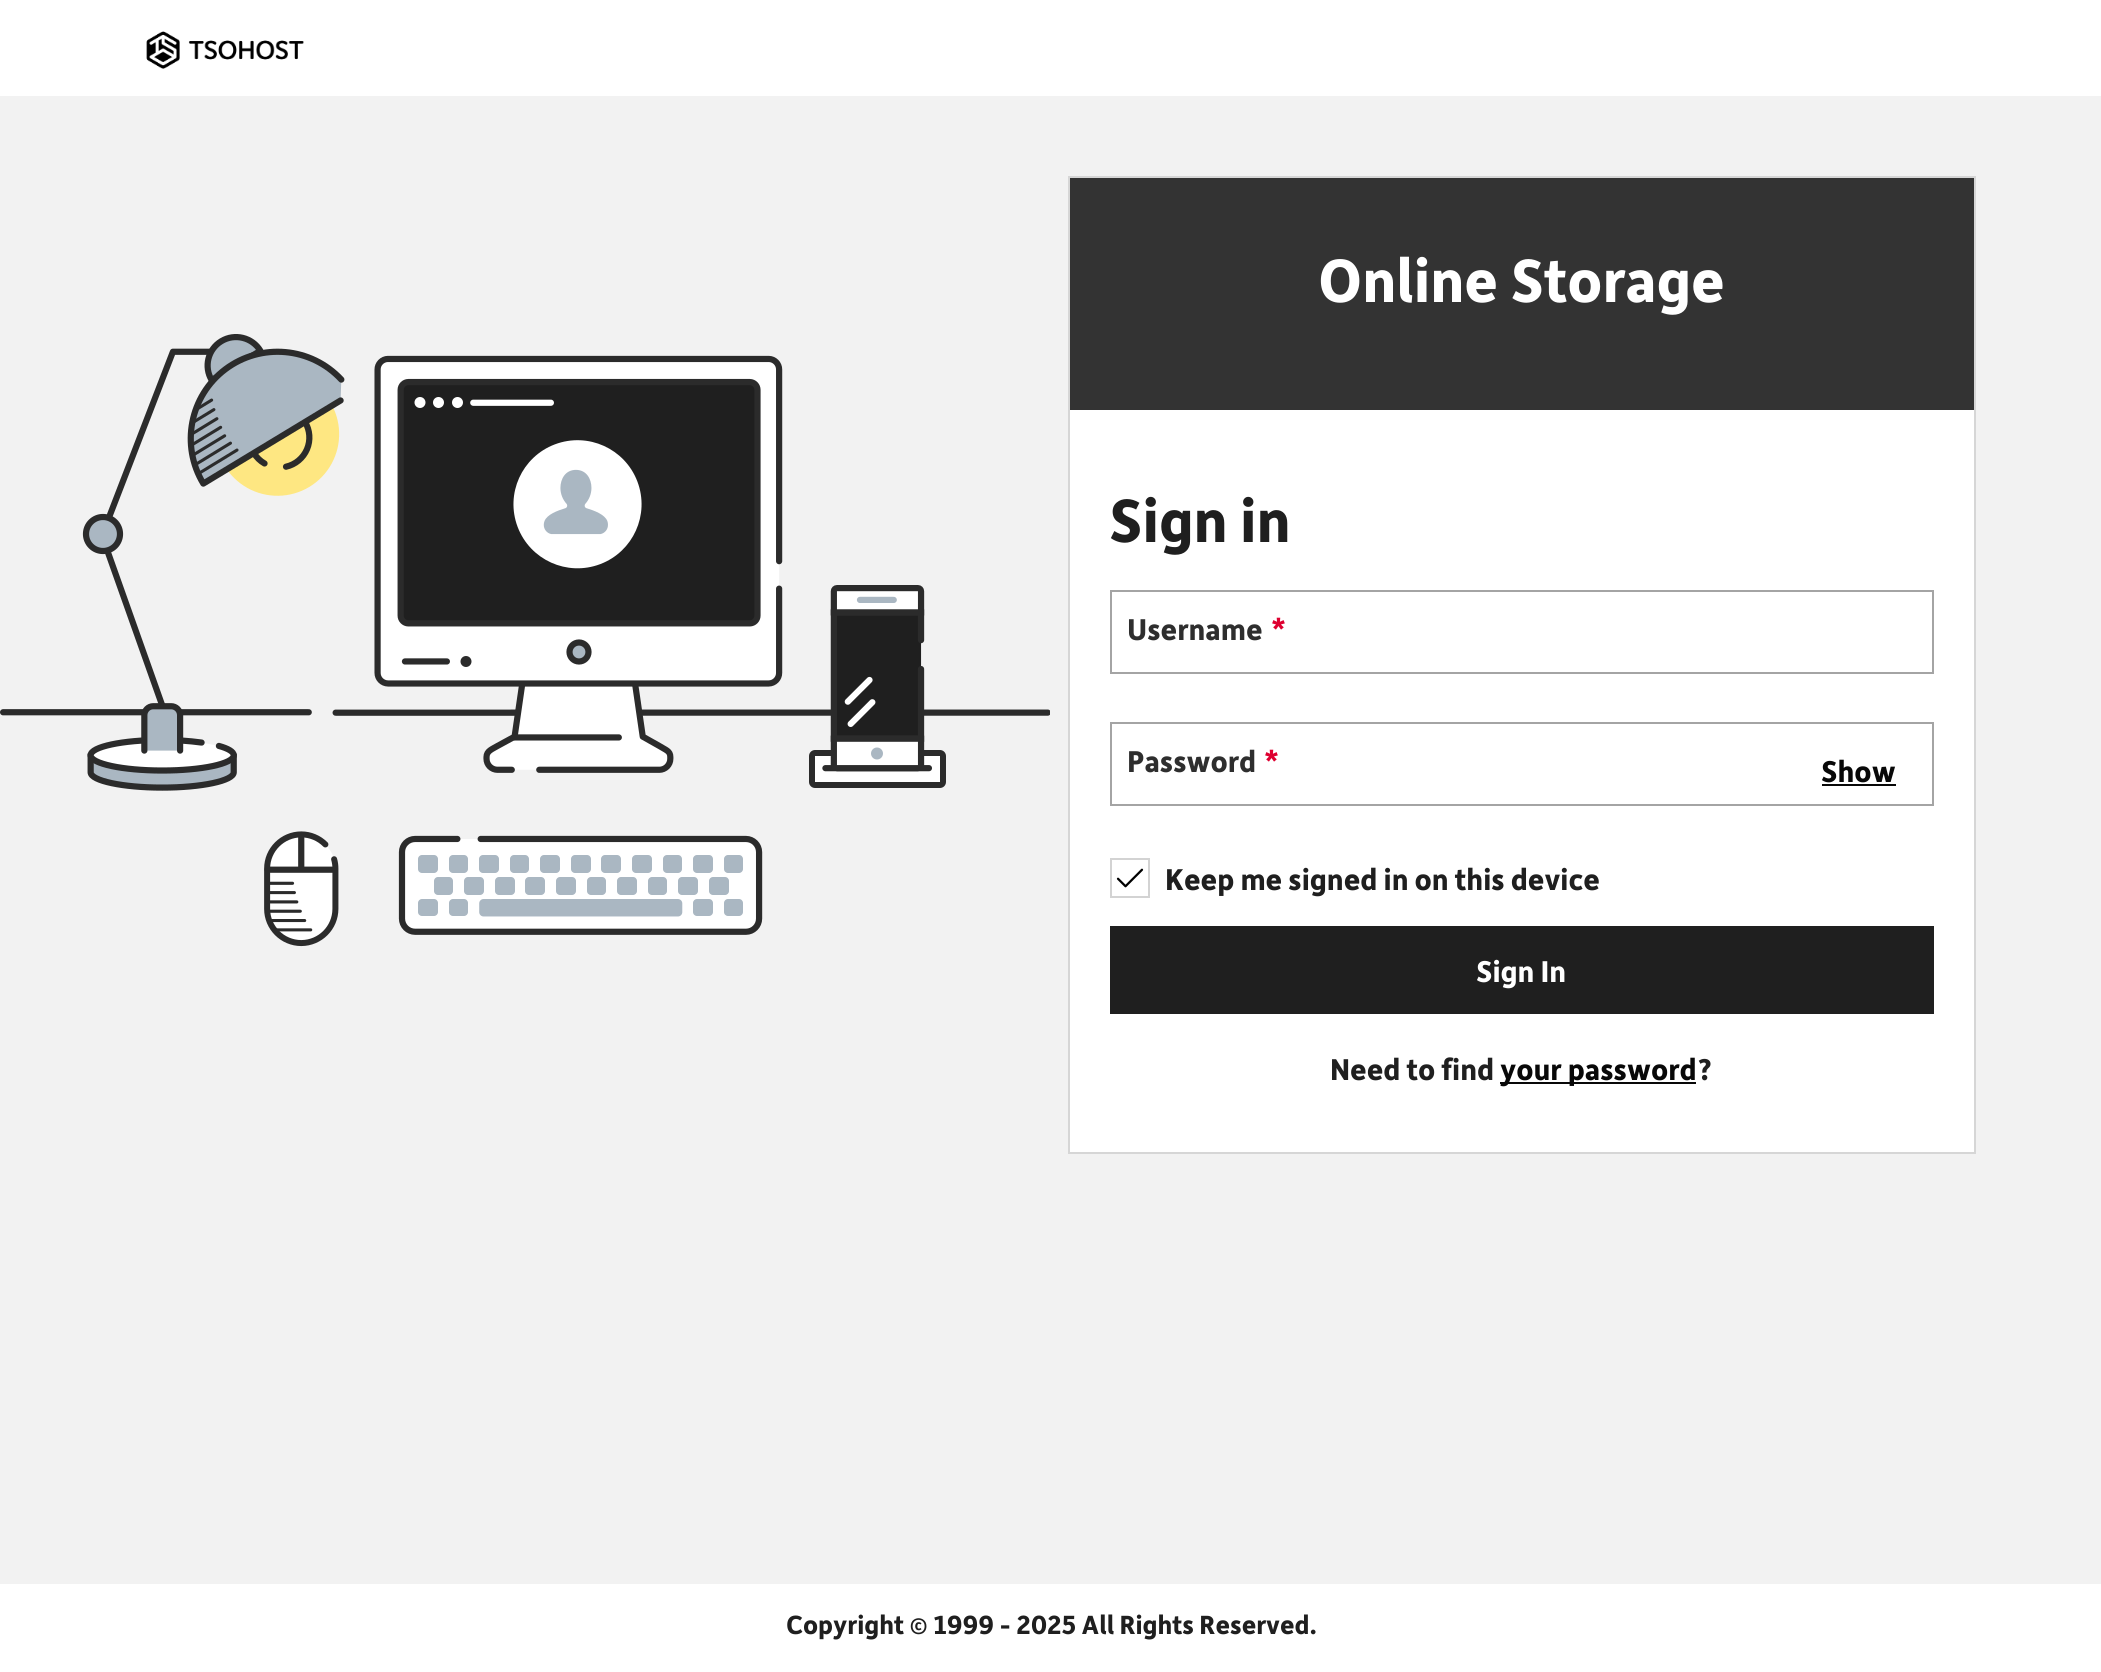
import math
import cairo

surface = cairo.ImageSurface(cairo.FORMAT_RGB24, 2101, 1672)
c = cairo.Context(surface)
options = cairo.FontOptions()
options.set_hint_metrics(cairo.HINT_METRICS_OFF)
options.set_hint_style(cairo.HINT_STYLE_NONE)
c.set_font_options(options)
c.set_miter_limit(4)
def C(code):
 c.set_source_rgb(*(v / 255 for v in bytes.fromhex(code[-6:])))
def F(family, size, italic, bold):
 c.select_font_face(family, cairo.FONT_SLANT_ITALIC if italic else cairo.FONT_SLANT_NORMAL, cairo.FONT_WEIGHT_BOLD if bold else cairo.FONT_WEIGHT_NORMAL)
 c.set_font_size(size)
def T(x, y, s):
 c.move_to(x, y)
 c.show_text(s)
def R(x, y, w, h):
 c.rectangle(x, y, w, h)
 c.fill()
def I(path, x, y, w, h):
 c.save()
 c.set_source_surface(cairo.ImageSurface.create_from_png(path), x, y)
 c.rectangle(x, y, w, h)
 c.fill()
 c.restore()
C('f2f2f2')
c.paint()
C('ffffff')
R(0,0,2101,96)
I('1.png',146,31,158,38)
I('2.png',0,334,1050,613)
R(1070,410,904,742)
c.rectangle(1069,177,906,976)
C('d6d6d6')
c.stroke()
C('333333')
R(1070,178,904,232)
F('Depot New',65,0,1)
C('ffffff')
T(1318,302,'Online Storage')
C('1f1f1f')
T(1109,542,'Sign in')
c.rectangle(1111,591,822,82)
C('a4a4a4')
c.stroke()
F('Depot New',32,0,1)
C('2e2e2e')
T(1127,640,'Username')
C('de0030')
T(1271,640,'*')
c.rectangle(1111,723,822,82)
C('a4a4a4')
c.stroke()
C('2e2e2e')
T(1127,772,'Password')
C('de0030')
T(1264,772,'*')
C('080808')
T(1821,782,'Show')
R(1822,784,74,2)
c.rectangle(1111,859,38,38)
C('d3d3d3')
c.stroke()
I('3.png',1116,868,28,20)
C('1f1f1f')
T(1165,890,'Keep me signed in on this device')
R(1110,926,824,88)
C('ffffff')
T(1476,982,'Sign In')
C('1f1f1f')
T(1330,1080,'Need to find')
C('080808')
R(1500,1082,196,2)
T(1500,1080,'your password')
C('1f1f1f')
T(1697,1080,'?')
C('ffffff')
R(0,1584,2101,88)
F('Depot New',28,0,1)
C('1f1f1f')
T(786,1634,'Copyright © 1999 - 2025 All Rights Reserved.')
surface.write_to_png('o.png')
